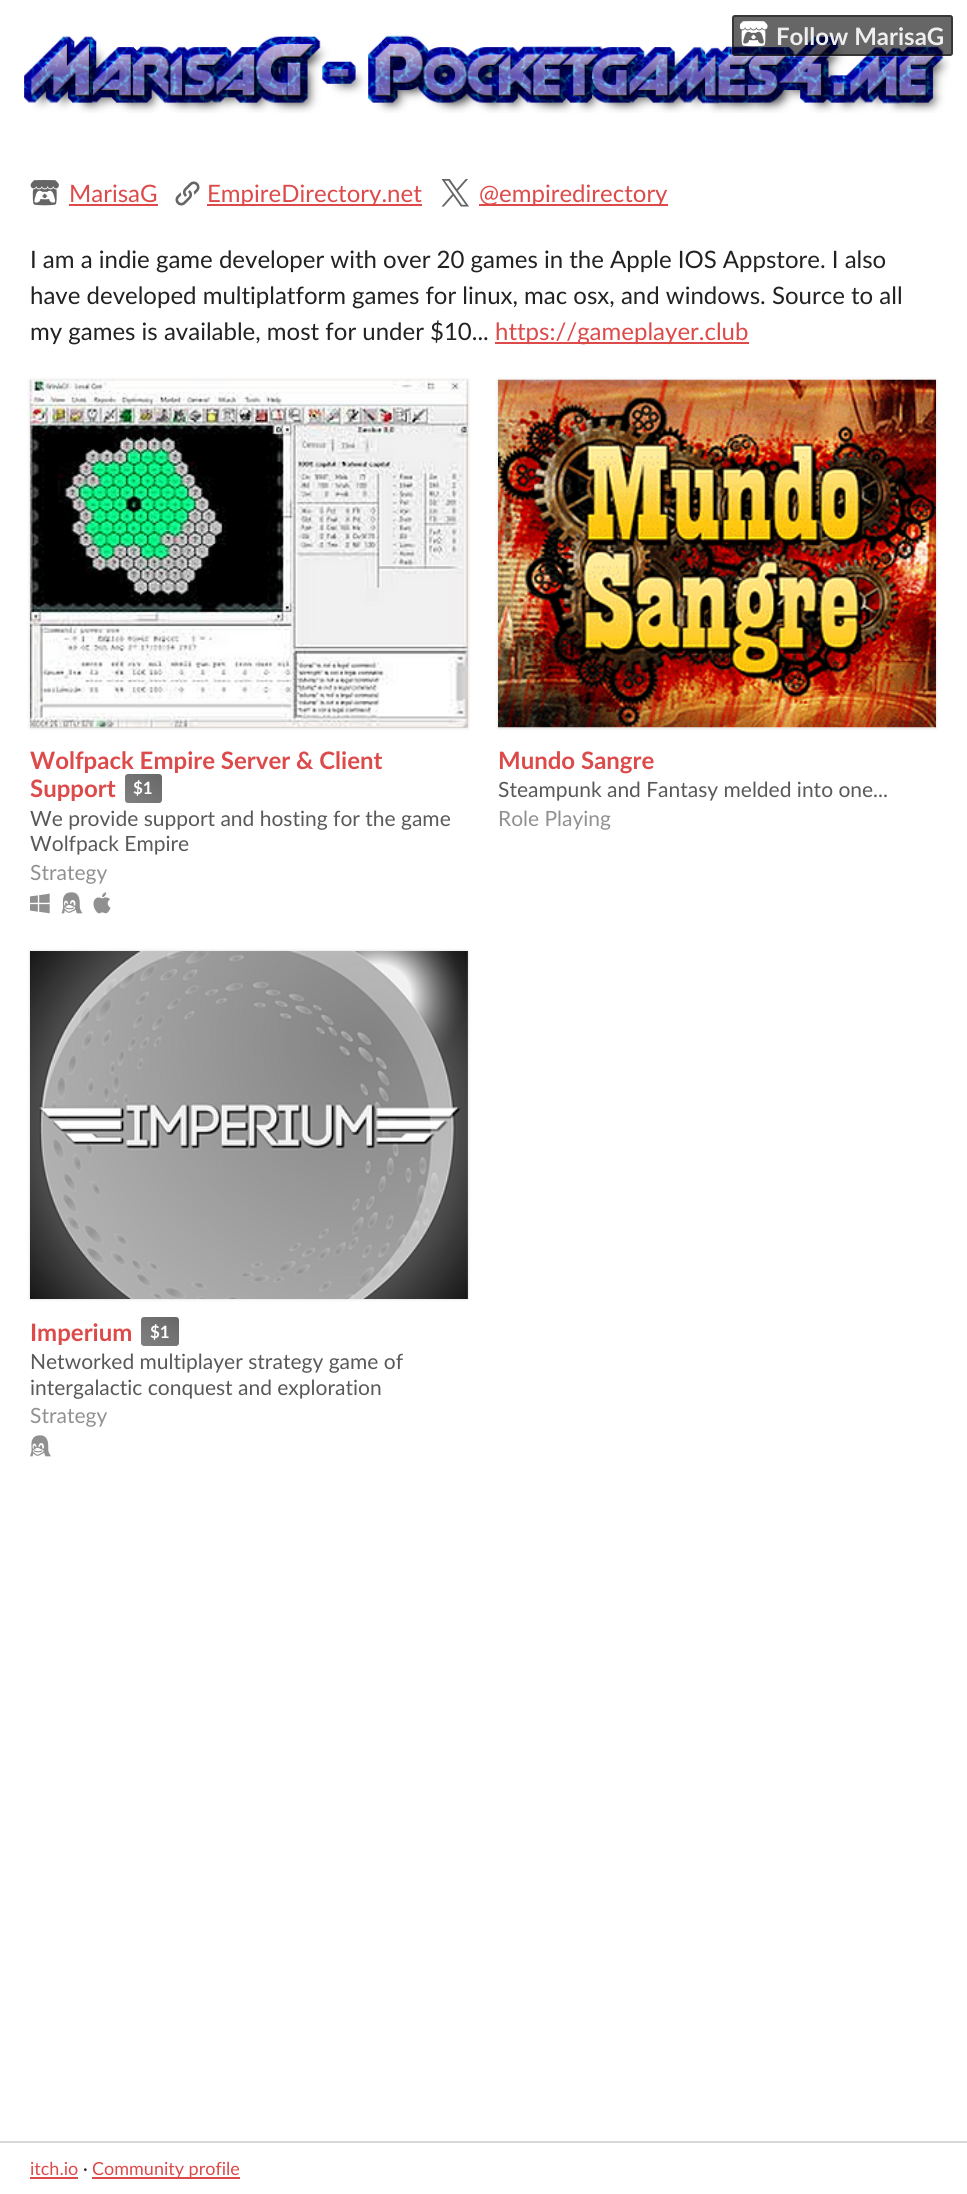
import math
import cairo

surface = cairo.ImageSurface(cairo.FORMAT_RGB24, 967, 2194)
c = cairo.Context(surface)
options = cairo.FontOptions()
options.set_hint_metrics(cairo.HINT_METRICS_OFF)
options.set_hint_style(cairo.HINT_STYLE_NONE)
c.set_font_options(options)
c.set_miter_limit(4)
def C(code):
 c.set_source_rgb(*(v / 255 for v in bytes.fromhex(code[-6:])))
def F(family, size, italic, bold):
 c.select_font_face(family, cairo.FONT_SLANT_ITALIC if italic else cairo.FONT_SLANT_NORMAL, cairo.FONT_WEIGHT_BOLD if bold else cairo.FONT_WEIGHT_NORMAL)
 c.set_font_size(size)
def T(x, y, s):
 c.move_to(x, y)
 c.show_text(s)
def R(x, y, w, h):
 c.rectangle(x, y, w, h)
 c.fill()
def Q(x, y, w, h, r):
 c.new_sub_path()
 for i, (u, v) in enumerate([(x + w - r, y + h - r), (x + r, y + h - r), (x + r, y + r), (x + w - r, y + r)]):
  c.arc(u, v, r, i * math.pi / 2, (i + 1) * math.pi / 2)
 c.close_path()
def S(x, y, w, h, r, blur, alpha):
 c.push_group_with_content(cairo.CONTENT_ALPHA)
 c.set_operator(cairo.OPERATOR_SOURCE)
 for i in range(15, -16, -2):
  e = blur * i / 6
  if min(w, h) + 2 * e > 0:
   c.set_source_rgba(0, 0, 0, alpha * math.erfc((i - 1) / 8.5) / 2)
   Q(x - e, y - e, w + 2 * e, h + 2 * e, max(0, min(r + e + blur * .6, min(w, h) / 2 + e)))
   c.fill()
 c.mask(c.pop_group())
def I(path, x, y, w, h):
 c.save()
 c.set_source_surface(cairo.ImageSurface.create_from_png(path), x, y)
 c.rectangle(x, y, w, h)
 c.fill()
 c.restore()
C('ffffff')
c.paint()
I('2.png',24,35,926,78)
Q(732,15,221,41,4)
c.set_source_rgba(1,1,1,0.2)
c.stroke()
c.set_source_rgba(0,0,0,0.6)
Q(732,15,221,41,3)
c.fill()
Q(733,16,219,39,2)
c.set_source_rgba(0.039,0.039,0.039,0.5)
c.stroke()
I('1.png',740,21,28,26)
F('Lato',24,0,1)
C('eeeeee')
T(776,45,'Follow MarisaG')
I('3.png',30,180,29,26)
F('Lato',24,0,0)
C('dd4a4a')
T(69,202,'MarisaG')
R(69,204,89,2)
I('4.png',175,181,25,25)
R(207,204,215,2)
T(207,202,'EmpireDirectory.net')
I('5.png',441,179,28,28)
R(479,204,189,2)
T(479,202,'@empiredirectory')
C('222222')
T(30,268,'I am a indie game developer with over 20 games in the Apple IOS Appstore. I also')
T(30,304,'have developed multiplatform games for linux, mac osx, and windows. Source to all')
T(30,340,'my games is available, most for under $10...')
C('dd4a4a')
R(495,342,254,2)
T(495,340,'https://gameplayer.club')
C('000000')
S(30,380,438,348,0,1.5,.15)
c.set_source_rgba(0,0,0,0.1)
R(30,727,438,1)
I('6.png',30,379,438,349)
F('Lato',24,0,1)
C('dd4a4a')
T(30,769,'Wolfpack Empire Server & Client')
T(30,797,'Support')
gradient = cairo.LinearGradient(130,806,157,770)
gradient.add_color_stop_rgba(0,0.502,0.502,0.502,1)
gradient.add_color_stop_rgba(1,0.404,0.404,0.404,1)
c.set_source(gradient)
Q(125,774,37,29,3)
c.fill()
F('Lato',17,0,1)
C('ffffff')
T(133,794,'$1')
F('Lato',21,0,0)
C('595959')
T(30,826,'We provide support and hosting for the game')
T(30,851,'Wolfpack Empire')
C('919191')
T(30,880,'Strategy')
I('7.png',30,893,20,21)
I('8.png',61,892,22,22)
I('9.png',93,892,18,22)
C('000000')
S(498,380,438,348,0,1.5,.15)
C('eeeeee')
R(498,727,438,1)
I('10.png',498,379,438,349)
F('Lato',24,0,1)
C('dd4a4a')
T(498,769,'Mundo Sangre')
F('Lato',21,0,0)
C('595959')
T(498,797,'Steampunk and Fantasy melded into one...')
C('919191')
T(498,826,'Role Playing')
C('000000')
S(30,951,438,348,0,1.5,.15)
I('11.png',30,951,438,348)
F('Lato',24,0,1)
C('dd4a4a')
T(30,1341,'Imperium')
gradient = cairo.LinearGradient(146,1349,173,1313)
gradient.add_color_stop_rgba(0,0.502,0.502,0.502,1)
gradient.add_color_stop_rgba(1,0.404,0.404,0.404,1)
c.set_source(gradient)
Q(141,1317,38,29,3)
c.fill()
F('Lato',17,0,1)
C('ffffff')
T(150,1338,'$1')
F('Lato',21,0,0)
C('595959')
T(30,1369,'Networked multiplayer strategy game of')
T(30,1395,'intergalactic conquest and exploration')
C('919191')
T(30,1423,'Strategy')
I('12.png',30,1435,21,22)
C('d8d8d8')
R(0,2141,967,2)
F('Lato',18,0,0)
C('dd4a4a')
T(30,2175,'itch.io')
R(30,2177,48,2)
C('222222')
T(83,2175,'·')
C('dd4a4a')
R(92,2177,148,2)
T(92,2175,'Community profile')
surface.write_to_png('o.png')
